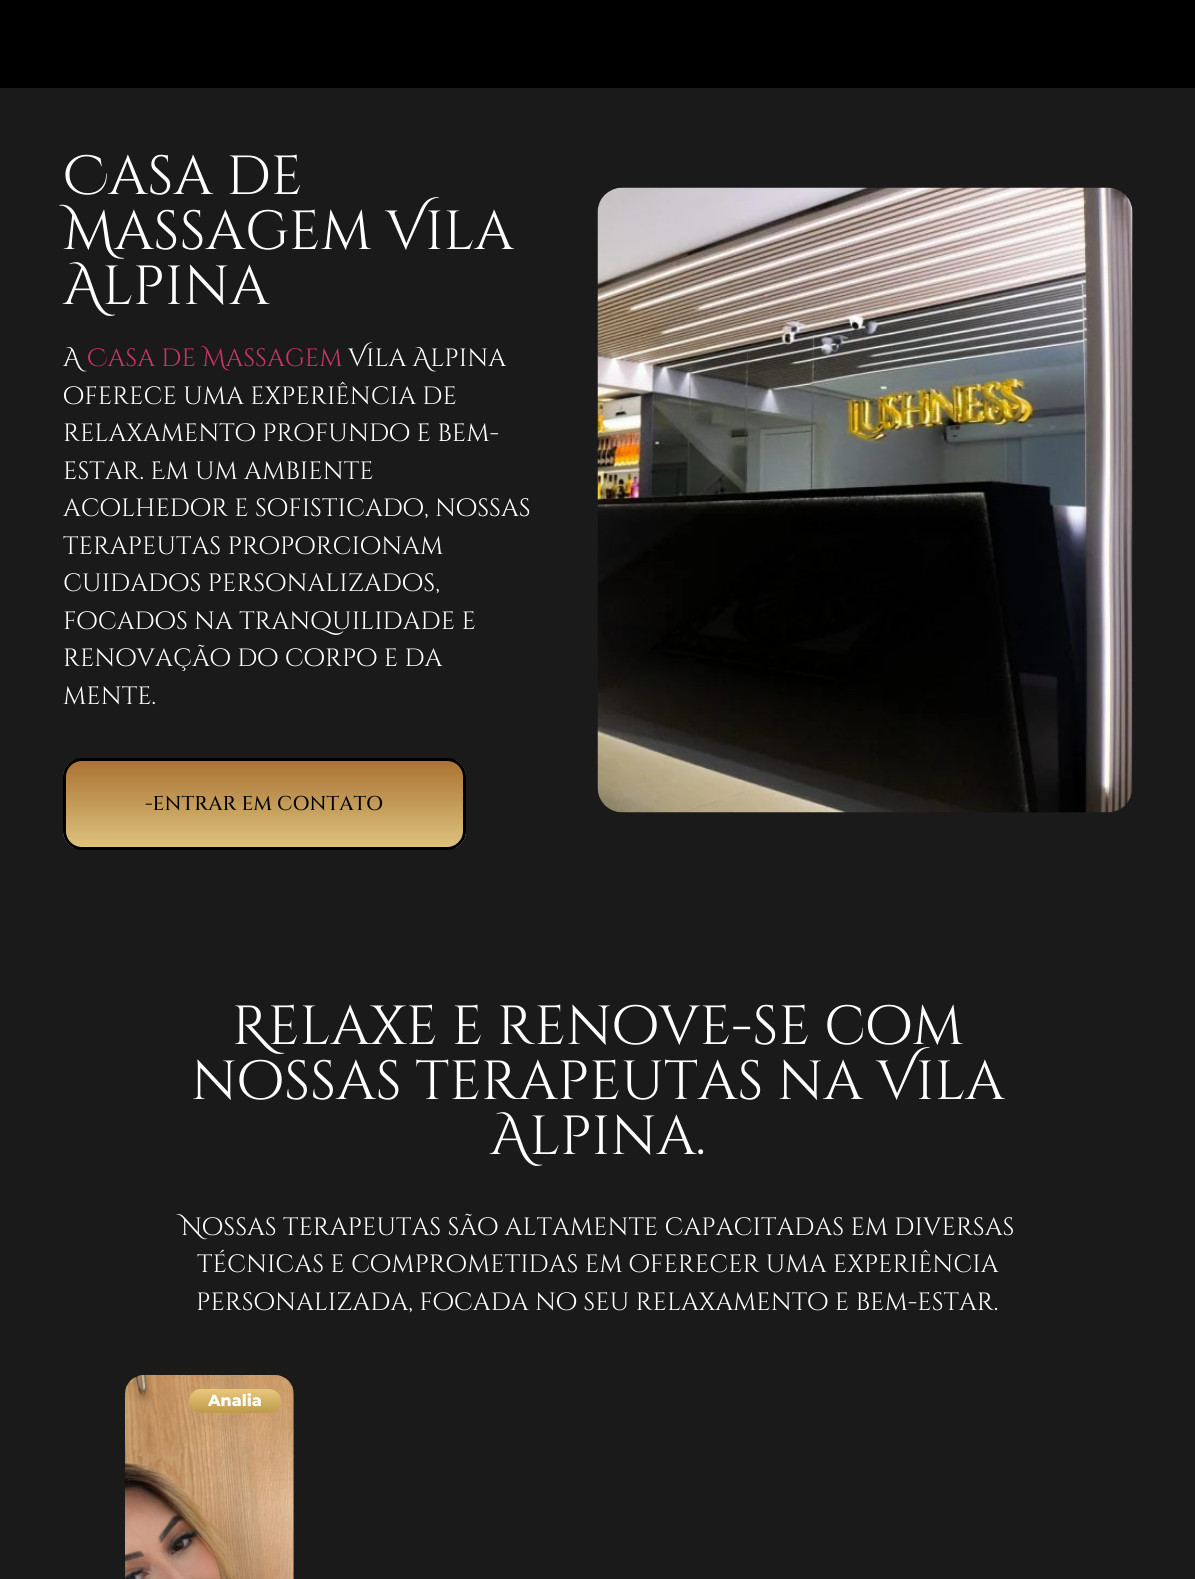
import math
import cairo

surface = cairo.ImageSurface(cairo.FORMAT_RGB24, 1195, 1579)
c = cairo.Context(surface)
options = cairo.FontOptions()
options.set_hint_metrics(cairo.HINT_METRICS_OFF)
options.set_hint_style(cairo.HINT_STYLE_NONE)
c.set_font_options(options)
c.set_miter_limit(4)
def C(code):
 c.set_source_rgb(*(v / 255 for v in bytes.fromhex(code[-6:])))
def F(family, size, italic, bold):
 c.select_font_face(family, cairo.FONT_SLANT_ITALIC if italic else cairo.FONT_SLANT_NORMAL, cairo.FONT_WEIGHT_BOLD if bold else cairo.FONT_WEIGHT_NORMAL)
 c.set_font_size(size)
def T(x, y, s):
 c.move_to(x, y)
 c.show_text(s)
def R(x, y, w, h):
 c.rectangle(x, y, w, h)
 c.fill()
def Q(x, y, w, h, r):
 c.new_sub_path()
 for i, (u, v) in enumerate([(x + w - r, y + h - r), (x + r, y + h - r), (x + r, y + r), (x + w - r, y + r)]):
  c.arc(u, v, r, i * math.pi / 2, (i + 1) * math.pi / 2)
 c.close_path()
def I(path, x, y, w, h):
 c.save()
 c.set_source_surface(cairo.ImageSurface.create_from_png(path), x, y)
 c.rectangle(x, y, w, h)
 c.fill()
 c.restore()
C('000000')
c.paint()
C('1a1a1a')
R(0,88,1195,1491)
F('Cinzel Decorative',55,0,0)
C('ffffff')
T(63,194,'Casa de')
T(63,249,'Massagem Vila')
T(63,304,'Alpina')
F('Cinzel Decorative',25,0,0)
T(63,366,'A')
C('cc3366')
T(87,366,'Casa de Massagem')
C('ffffff')
T(348,366,'Vila Alpina')
T(63,404,'oferece uma experiência de')
T(63,441,'relaxamento profundo e bem-')
T(63,479,'estar. Em um ambiente')
T(63,516,'acolhedor e sofisticado, nossas')
T(63,554,'terapeutas proporcionam')
T(63,591,'cuidados personalizados,')
T(63,629,'focados na tranquilidade e')
T(63,666,'renovação do corpo e da')
T(63,704,'mente.')
c.save()
Q(63,758,403,92,19)
c.clip()
gradient = cairo.LinearGradient(264,760,264,848)
gradient.add_color_stop_rgba(0,0.667,0.447,0.2,1)
gradient.add_color_stop_rgba(1,0.867,0.765,0.494,1)
c.set_source(gradient)
R(63,760,403,88)
c.restore()
Q(64.5,759.5,400,89,17.5)
C('000000')
c.set_line_width(3)
c.stroke()
F('Cinzel Medium',20,0,0)
T(145,810,'-ENTRAR EM CONTATO')
I('1.png',597,187,536,626)
F('Cinzel Decorative',55,0,0)
C('ffffff')
T(232,1044,'Relaxe e renove-se com')
T(191,1099,'nossas terapeutas na Vila')
T(490,1154,'Alpina.')
F('Cinzel Decorative',25,0,0)
T(181,1235,'Nossas terapeutas são altamente capacitadas em diversas')
T(197,1272,'técnicas e comprometidas em oferecer uma experiência')
T(196,1310,'personalizada, focada no seu relaxamento e bem-estar.')
I('2.png',125,1375,169,204)
gradient = cairo.LinearGradient(235,1389,235,1413)
gradient.add_color_stop_rgba(0,0.914,0.784,0.49,1)
gradient.add_color_stop_rgba(1,0.745,0.604,0.29,1)
c.set_source(gradient)
Q(189,1389,92,24,12)
c.fill()
F('Montserrat ExtraBold',16,0,0)
C('ffffff')
T(208,1406,'Analia')
surface.write_to_png('o.png')
